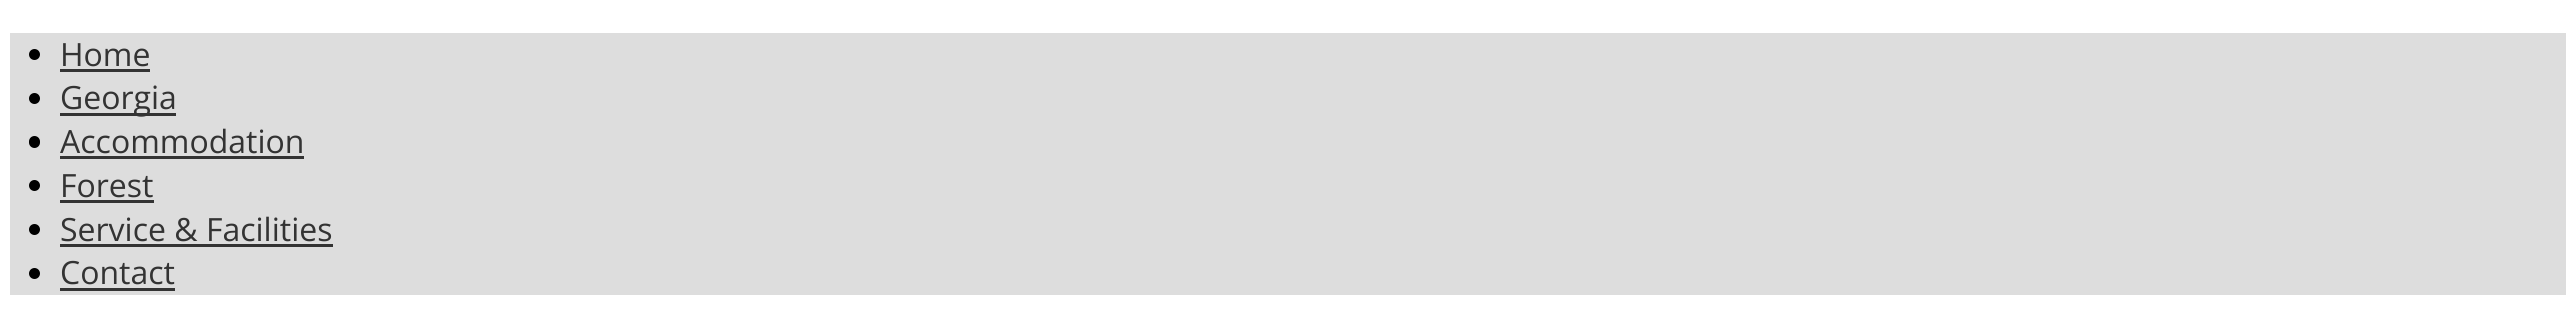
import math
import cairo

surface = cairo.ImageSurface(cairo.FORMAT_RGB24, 2576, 324)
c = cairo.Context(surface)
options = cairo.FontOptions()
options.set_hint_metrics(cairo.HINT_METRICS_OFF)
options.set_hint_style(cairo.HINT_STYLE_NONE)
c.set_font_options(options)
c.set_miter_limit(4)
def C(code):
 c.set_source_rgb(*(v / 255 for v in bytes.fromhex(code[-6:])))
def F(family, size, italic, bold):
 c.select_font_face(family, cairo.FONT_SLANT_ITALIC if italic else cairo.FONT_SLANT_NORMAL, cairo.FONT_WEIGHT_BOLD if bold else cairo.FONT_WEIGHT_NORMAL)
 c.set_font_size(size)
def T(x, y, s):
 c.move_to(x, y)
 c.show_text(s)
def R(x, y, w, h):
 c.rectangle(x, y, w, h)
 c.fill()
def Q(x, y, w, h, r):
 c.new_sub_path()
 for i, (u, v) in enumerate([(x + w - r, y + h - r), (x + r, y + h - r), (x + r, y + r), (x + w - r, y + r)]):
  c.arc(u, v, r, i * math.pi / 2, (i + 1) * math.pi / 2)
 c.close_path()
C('ffffff')
c.paint()
C('dddddd')
R(10,33,2556,262)
C('000000')
c.arc(34.5,54.5,5.5,0,2 * math.pi)
c.fill()
F('Open Sans',32,0,0)
C('333333')
T(60,66,'Home')
R(60,69,90,3)
C('000000')
c.new_path()
c.arc(34.5,98.5,5.5,0,2 * math.pi)
c.fill()
C('333333')
R(60,113,116,3)
T(60,109,'Georgia')
C('000000')
Q(29,136,11,12,5.5)
c.fill()
C('333333')
T(60,153,'Accommodation')
R(60,156,244,3)
C('000000')
c.new_path()
c.arc(34.5,185.5,5.5,0,2 * math.pi)
c.fill()
C('333333')
T(60,197,'Forest')
R(60,200,94,3)
C('000000')
c.new_path()
c.arc(34.5,229.5,5.5,0,2 * math.pi)
c.fill()
C('333333')
T(60,241,'Service & Facilities')
R(60,244,273,3)
C('000000')
c.new_path()
c.arc(34.5,273.5,5.5,0,2 * math.pi)
c.fill()
C('333333')
T(60,284,'Contact')
R(60,288,115,3)
surface.write_to_png('o.png')
